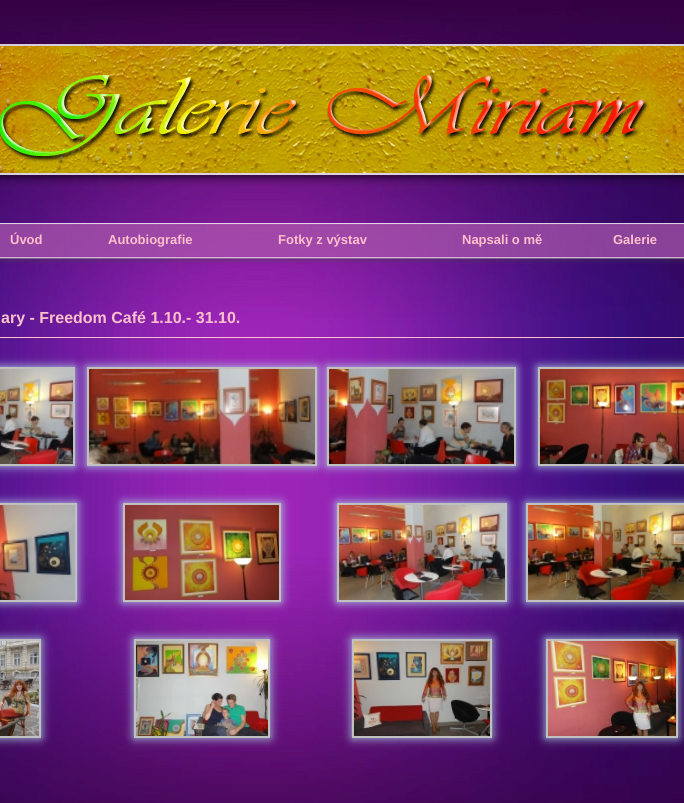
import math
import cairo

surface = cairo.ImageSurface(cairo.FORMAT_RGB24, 684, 803)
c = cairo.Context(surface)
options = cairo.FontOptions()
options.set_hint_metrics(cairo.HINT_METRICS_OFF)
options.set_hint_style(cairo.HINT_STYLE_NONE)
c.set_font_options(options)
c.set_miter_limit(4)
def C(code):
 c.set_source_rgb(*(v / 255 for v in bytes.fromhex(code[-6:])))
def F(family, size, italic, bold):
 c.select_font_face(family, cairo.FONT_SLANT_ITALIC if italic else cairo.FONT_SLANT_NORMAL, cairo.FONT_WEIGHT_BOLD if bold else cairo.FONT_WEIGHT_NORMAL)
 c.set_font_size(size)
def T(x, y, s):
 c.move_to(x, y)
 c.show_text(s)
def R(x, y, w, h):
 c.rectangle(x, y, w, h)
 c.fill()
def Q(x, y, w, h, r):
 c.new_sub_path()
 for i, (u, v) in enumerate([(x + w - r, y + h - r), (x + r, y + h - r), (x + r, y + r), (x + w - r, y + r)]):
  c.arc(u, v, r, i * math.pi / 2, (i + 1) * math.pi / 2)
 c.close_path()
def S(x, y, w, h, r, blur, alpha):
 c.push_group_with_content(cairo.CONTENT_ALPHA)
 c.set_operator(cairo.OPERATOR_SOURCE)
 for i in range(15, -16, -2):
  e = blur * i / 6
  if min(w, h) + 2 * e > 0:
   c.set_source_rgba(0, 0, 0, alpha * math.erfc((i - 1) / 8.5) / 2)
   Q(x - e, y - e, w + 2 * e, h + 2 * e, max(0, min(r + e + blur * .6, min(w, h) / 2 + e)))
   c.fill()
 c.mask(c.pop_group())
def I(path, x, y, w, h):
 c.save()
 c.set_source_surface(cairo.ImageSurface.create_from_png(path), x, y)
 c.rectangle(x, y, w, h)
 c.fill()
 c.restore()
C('ffffff')
c.paint()
I('1.png',0,0,684,803)
I('2.png',0,223,684,41)
F('Liberation Sans',13,0,1)
C('ffc0cb')
T(10,244,'Úvod')
T(108,244,'Autobiografie')
T(278,244,'Fotky z výstav')
T(462,244,'Napsali o mě')
T(613,244,'Galerie')
F('Liberation Sans',16,0,1)
T(1,323,'ary - Freedom Café 1.10.- 31.10.')
R(0,337,684,1)
C('add8e6')
S(-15,367,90,99,0,5,1)
c.rectangle(-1,368,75,97)
C('c0c0c0')
c.stroke()
I('3.png',0,369,73,95)
C('add8e6')
S(87,367,230,99,0,5,1)
c.rectangle(88,368,228,97)
C('c0c0c0')
c.stroke()
I('4.png',89,369,226,95)
C('add8e6')
S(327,367,189,99,0,5,1)
c.rectangle(328,368,187,97)
C('c0c0c0')
c.stroke()
I('5.png',329,369,185,95)
C('add8e6')
S(538,367,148,99,0,5,1)
c.rectangle(539,368,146,97)
C('c0c0c0')
c.stroke()
I('6.png',540,369,144,95)
C('add8e6')
S(-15,503,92,99,0,5,1)
c.rectangle(-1,504,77,97)
C('c0c0c0')
c.stroke()
I('7.png',0,505,75,95)
C('add8e6')
S(123,503,158,99,0,5,1)
c.rectangle(124,504,156,97)
C('c0c0c0')
c.stroke()
I('8.png',125,505,154,95)
C('add8e6')
S(337,503,170,99,0,5,1)
c.rectangle(338,504,168,97)
C('c0c0c0')
c.stroke()
I('9.png',339,505,166,95)
C('add8e6')
S(526,503,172,99,0,5,1)
c.rectangle(527,504,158,97)
C('c0c0c0')
c.stroke()
I('10.png',528,505,156,95)
C('add8e6')
S(-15,639,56,99,0,5,1)
c.rectangle(-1,640,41,97)
C('c0c0c0')
c.stroke()
I('11.png',0,641,39,95)
C('add8e6')
S(134,639,136,99,0,5,1)
c.rectangle(135,640,134,97)
C('c0c0c0')
c.stroke()
I('12.png',136,641,132,95)
C('add8e6')
S(352,639,140,99,0,5,1)
c.rectangle(353,640,138,97)
C('c0c0c0')
c.stroke()
I('13.png',354,641,136,95)
C('add8e6')
S(546,639,132,99,0,5,1)
c.rectangle(547,640,130,97)
C('c0c0c0')
c.stroke()
I('14.png',548,641,128,95)
surface.write_to_png('o.png')
